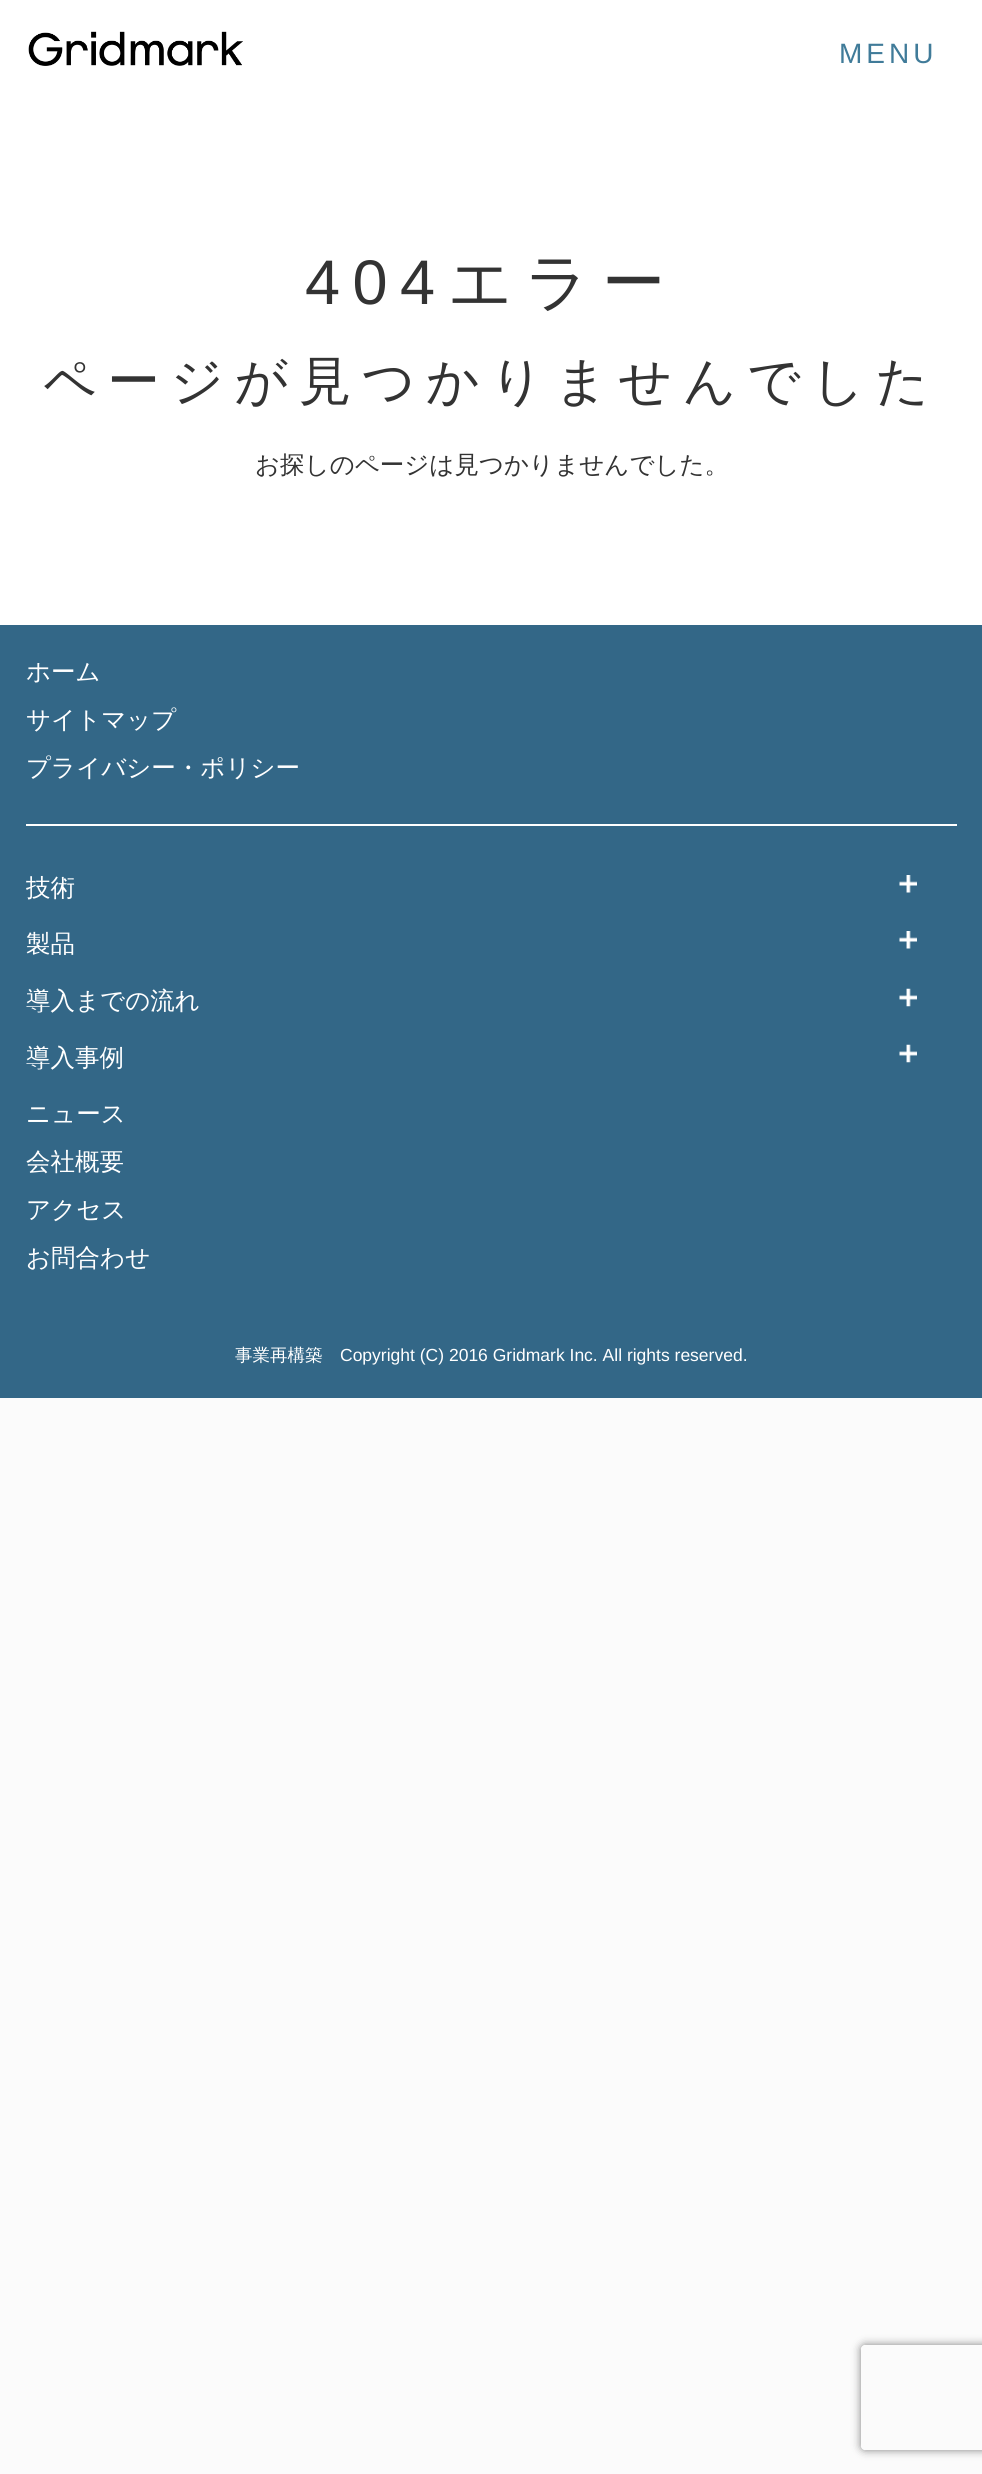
import math
import cairo

surface = cairo.ImageSurface(cairo.FORMAT_RGB24, 982, 2474)
c = cairo.Context(surface)
options = cairo.FontOptions()
options.set_hint_metrics(cairo.HINT_METRICS_OFF)
options.set_hint_style(cairo.HINT_STYLE_NONE)
c.set_font_options(options)
c.set_miter_limit(4)
def C(code):
 c.set_source_rgb(*(v / 255 for v in bytes.fromhex(code[-6:])))
def F(family, size, italic, bold):
 c.select_font_face(family, cairo.FONT_SLANT_ITALIC if italic else cairo.FONT_SLANT_NORMAL, cairo.FONT_WEIGHT_BOLD if bold else cairo.FONT_WEIGHT_NORMAL)
 c.set_font_size(size)
def T(x, y, s):
 c.move_to(x, y)
 c.show_text(s)
def L(x, y, s, letter, word):
 c.move_to(x, y)
 for ch in s:
  c.show_text(ch)
  c.rel_move_to(letter + word * (ch == ' '), 0)
def R(x, y, w, h):
 c.rectangle(x, y, w, h)
 c.fill()
def Q(x, y, w, h, r):
 c.new_sub_path()
 for i, (u, v) in enumerate([(x + w - r, y + h - r), (x + r, y + h - r), (x + r, y + r), (x + w - r, y + r)]):
  c.arc(u, v, r, i * math.pi / 2, (i + 1) * math.pi / 2)
 c.close_path()
def S(x, y, w, h, r, blur, alpha):
 c.push_group_with_content(cairo.CONTENT_ALPHA)
 c.set_operator(cairo.OPERATOR_SOURCE)
 for i in range(15, -16, -2):
  e = blur * i / 6
  if min(w, h) + 2 * e > 0:
   c.set_source_rgba(0, 0, 0, alpha * math.erfc((i - 1) / 8.5) / 2)
   Q(x - e, y - e, w + 2 * e, h + 2 * e, max(0, min(r + e + blur * .6, min(w, h) / 2 + e)))
   c.fill()
 c.mask(c.pop_group())
def I(path, x, y, w, h):
 c.save()
 c.set_source_surface(cairo.ImageSurface.create_from_png(path), x, y)
 c.rectangle(x, y, w, h)
 c.fill()
 c.restore()
C('fbfbfb')
c.paint()
C('ffffff')
R(0,0,982,625)
I('1.png',28,31,215,35)
F('Liberation Sans',28,0,0)
C('407b99')
L(839,63,'MENU',4,0)
F('Liberation Sans',63,0,0)
C('333333')
L(305,304,'404',12.5,0)
F('WenQuanYi Zen Hei Medium',63,0,0)
L(448,304,'エラー',12.5,0)
F('WenQuanYi Zen Hei Medium',52.5,0,0)
L(43,399,'ページが見つかりませんでした',10.5,0)
F('WenQuanYi Zen Hei Medium',24.5,0,0)
T(255,473,'お探しのページは見つかりませんでした。')
C('336787')
R(0,625,982,773)
C('ffffff')
R(26,824,931,2)
T(26,680,'ホーム')
T(26,728,'サイトマップ')
T(26,776,'プライバシー・ポリシー')
T(26,896,'技術')
I('2.png',899,875,18,18)
T(26,952,'製品')
I('2.png',899,931,18,18)
T(26,1009,'導入までの流れ')
I('3.png',899,988,18,19)
T(26,1066,'導入事例')
I('3.png',899,1044,18,19)
T(26,1122,'ニュース')
T(26,1170,'会社概要')
T(26,1218,'アクセス')
T(26,1266,'お問合わせ')
F('WenQuanYi Zen Hei Medium',17.5,0,0)
T(235,1361,'事業再構築')
F('Liberation Sans',17.5,0,0)
T(340,1361,'Copyright (C) 2016 Gridmark Inc. All rights reserved.')
c.save()
c.set_fill_rule(cairo.FILL_RULE_EVEN_ODD)
c.new_path()
c.move_to(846,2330)
c.line_to(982,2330)
c.line_to(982,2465)
c.line_to(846,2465)
c.close_path()
c.move_to(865,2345)
c.line_to(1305,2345)
c.curve_to(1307,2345,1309,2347,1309,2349)
c.line_to(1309,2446)
c.curve_to(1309,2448,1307,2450,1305,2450)
c.line_to(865,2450)
c.curve_to(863,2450,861,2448,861,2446)
c.line_to(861,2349)
c.curve_to(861,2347,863,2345,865,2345)
c.close_path()
c.clip()
C('808080')
S(861,2345,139,105,4,4.5,1)
c.restore()
surface.write_to_png('o.png')
